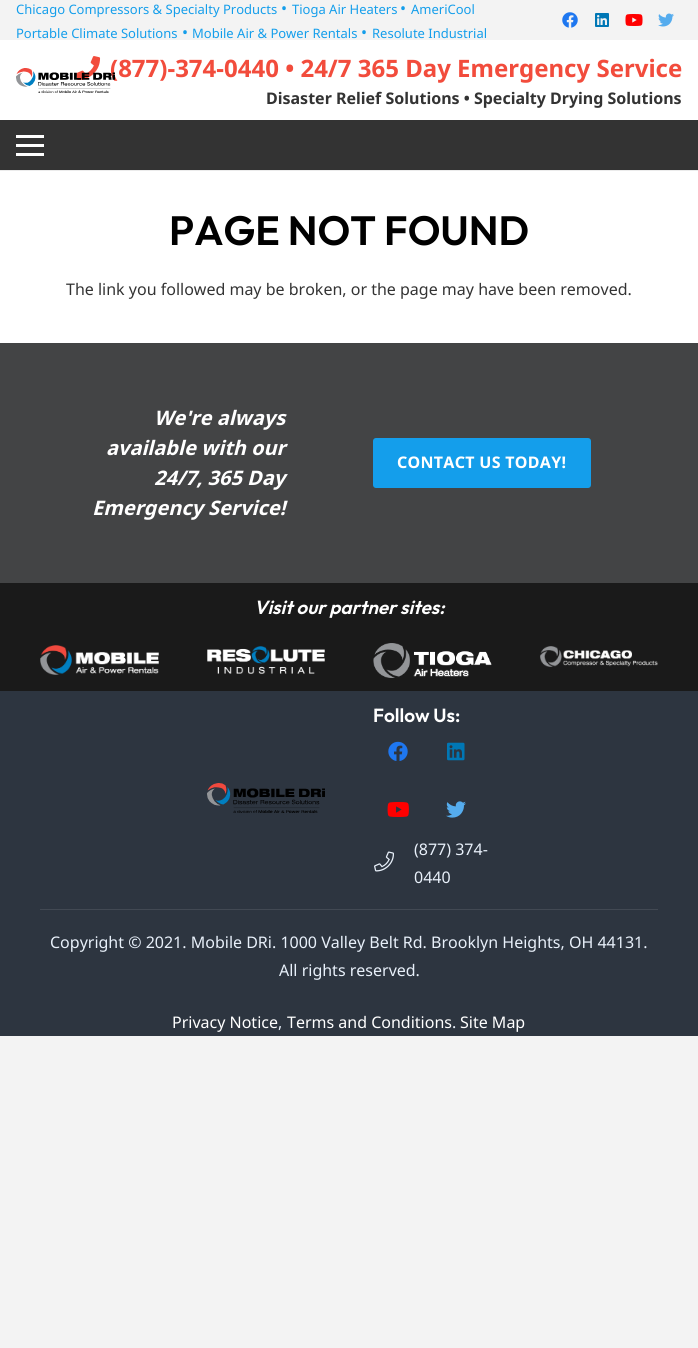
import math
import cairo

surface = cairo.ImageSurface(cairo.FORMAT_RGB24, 698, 1348)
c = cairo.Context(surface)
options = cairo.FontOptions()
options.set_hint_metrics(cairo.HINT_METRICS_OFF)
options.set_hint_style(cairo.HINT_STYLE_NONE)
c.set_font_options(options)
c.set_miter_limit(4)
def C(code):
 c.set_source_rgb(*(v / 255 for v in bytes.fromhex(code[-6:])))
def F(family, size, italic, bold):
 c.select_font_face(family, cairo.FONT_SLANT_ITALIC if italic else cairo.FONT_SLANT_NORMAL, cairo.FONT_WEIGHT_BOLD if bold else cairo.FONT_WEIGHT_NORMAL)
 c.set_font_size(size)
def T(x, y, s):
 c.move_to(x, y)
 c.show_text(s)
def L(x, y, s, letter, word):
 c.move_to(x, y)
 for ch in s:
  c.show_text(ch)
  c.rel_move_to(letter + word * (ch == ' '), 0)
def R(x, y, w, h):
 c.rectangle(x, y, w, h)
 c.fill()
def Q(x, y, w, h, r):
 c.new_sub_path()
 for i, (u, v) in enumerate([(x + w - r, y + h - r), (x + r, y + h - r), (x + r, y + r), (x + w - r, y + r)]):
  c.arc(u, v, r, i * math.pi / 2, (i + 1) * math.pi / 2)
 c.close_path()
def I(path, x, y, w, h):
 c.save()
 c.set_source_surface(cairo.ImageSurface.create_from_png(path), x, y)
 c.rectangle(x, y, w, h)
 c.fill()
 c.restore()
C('f3f3f3')
c.paint()
C('ffffff')
R(0,40,698,303)
F('Noto Sans',13,0,0)
C('149eeb')
T(16,14,'Chicago Compressors & Specialty Products')
F('Noto Sans',16,0,0)
T(281,14,'•')
F('Noto Sans',13,0,0)
T(292,14,'Tioga Air Heaters')
F('Noto Sans',16,0,0)
T(400,14,'•')
F('Noto Sans',13,0,0)
T(411,14,'AmeriCool')
T(16,38,'Portable Climate Solutions')
F('Noto Sans',16,0,0)
T(182,38,'•')
F('Noto Sans',13,0,0)
T(192,38,'Mobile Air & Power Rentals')
F('Noto Sans',16,0,0)
T(361,38,'•')
F('Noto Sans',13,0,0)
T(372,38,'Resolute Industrial')
I('1.png',562,12,16,16)
I('2.png',595,13,14,14)
I('3.png',625,14,18,12)
I('4.png',658,13,16,14)
I('6.png',76,56,25,24)
F('Noto Sans',24,0,1)
C('f24c3c')
T(110,77,'(877)-374-0440 • 24/7 365 Day Emergency Service')
I('5.png',16,68,99,25)
F('Noto Sans',16,0,1)
C('333333')
T(266,104,'Disaster Relief Solutions • Specialty Drying Solutions')
C('ebebeb')
R(0,170,698,1)
C('333333')
R(0,120,698,50)
C('ffffff')
R(16,144,28,3)
R(16,135,28,3)
R(16,153,28,3)
F('Outfit Thin',40.9,0,0)
C('000000')
T(169,245,'PAGE NOT FOUND')
F('Noto Sans',16,0,0)
C('333333')
T(66,295,'The link you followed may be broken, or the page may have been removed.')
C('434445')
R(0,343,698,240)
F('Noto Sans',20,1,1)
C('ffffff')
T(154,425,'We\'re always')
T(106,455,'available with our')
T(154,485,'24/7, 365 Day')
T(92,515,'Emergency Service!')
C('149eeb')
Q(373,438,218,50,3)
c.fill()
F('Noto Sans',16,0,1)
C('ffffff')
L(397,468,'CONTACT US TODAY!',.3,0)
C('1a1a1a')
R(0,583,698,108)
F('Outfit Thin',19,1,0)
C('ffffff')
T(254,614,'Visit our partner sites:')
I('7.png',40,645,119,30)
I('8.png',207,646,118,28)
I('9.png',373,643,119,35)
I('10.png',540,646,118,21)
C('2d3540')
R(0,691,698,345)
I('11.png',207,783,118,30)
F('Outfit Thin',19,0,0)
C('ffffff')
T(373,722,'Follow Us:')
I('12.png',388,741,20,20)
I('13.png',447,742,18,19)
I('14.png',387,802,22,15)
I('15.png',446,801,20,17)
I('16.png',374,851,20,21)
F('Noto Sans',16,0,0)
C('e8f0fa')
T(414,855,'(877) 374-')
T(414,883,'0440')
C('424953')
R(40,909,618,1)
C('e8f0fa')
T(50,948,'Copyright © 2021. Mobile DRi. 1000 Valley Belt Rd. Brooklyn Heights, OH 44131.')
T(279,976,'All rights reserved.')
C('ffffff')
T(172,1028,'Privacy Notice')
C('e8f0fa')
T(278,1028,',')
C('ffffff')
T(287,1028,'Terms and Conditions')
C('e8f0fa')
T(452,1028,'.')
C('ffffff')
T(460,1028,'Site Map')
surface.write_to_png('o.png')
